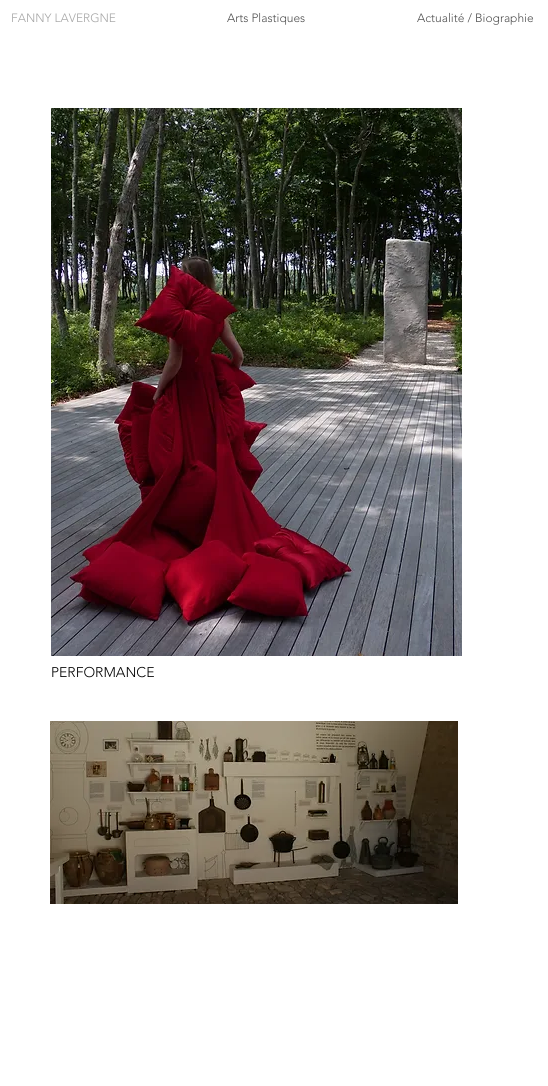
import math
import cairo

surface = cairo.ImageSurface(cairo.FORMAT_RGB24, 548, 1086)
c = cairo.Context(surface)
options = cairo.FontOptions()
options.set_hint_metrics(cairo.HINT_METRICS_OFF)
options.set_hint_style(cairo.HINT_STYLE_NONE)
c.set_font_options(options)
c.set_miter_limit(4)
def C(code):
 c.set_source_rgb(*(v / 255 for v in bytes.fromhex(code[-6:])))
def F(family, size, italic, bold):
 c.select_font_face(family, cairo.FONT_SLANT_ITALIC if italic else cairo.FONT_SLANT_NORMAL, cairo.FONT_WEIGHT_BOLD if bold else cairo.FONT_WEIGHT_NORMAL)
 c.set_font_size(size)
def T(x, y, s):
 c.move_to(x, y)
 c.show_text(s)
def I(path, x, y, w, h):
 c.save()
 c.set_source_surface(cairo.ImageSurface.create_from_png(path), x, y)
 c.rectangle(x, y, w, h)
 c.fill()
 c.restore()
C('ffffff')
c.paint()
F('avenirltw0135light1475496 Light',12,0,0)
C('a6a6a6')
T(11,22,'FANNY LAVERGNE')
C('4e4e4e')
T(227,22,'Arts Plastiques')
T(417,22,'Actualité / Biographie')
I('1.png',51,108,411,548)
F('avenirltw0135light1475496 Light',14,0,0)
C('000000')
T(51,677,'PERFORMANCE')
I('2.png',50,721,408,183)
surface.write_to_png('o.png')
